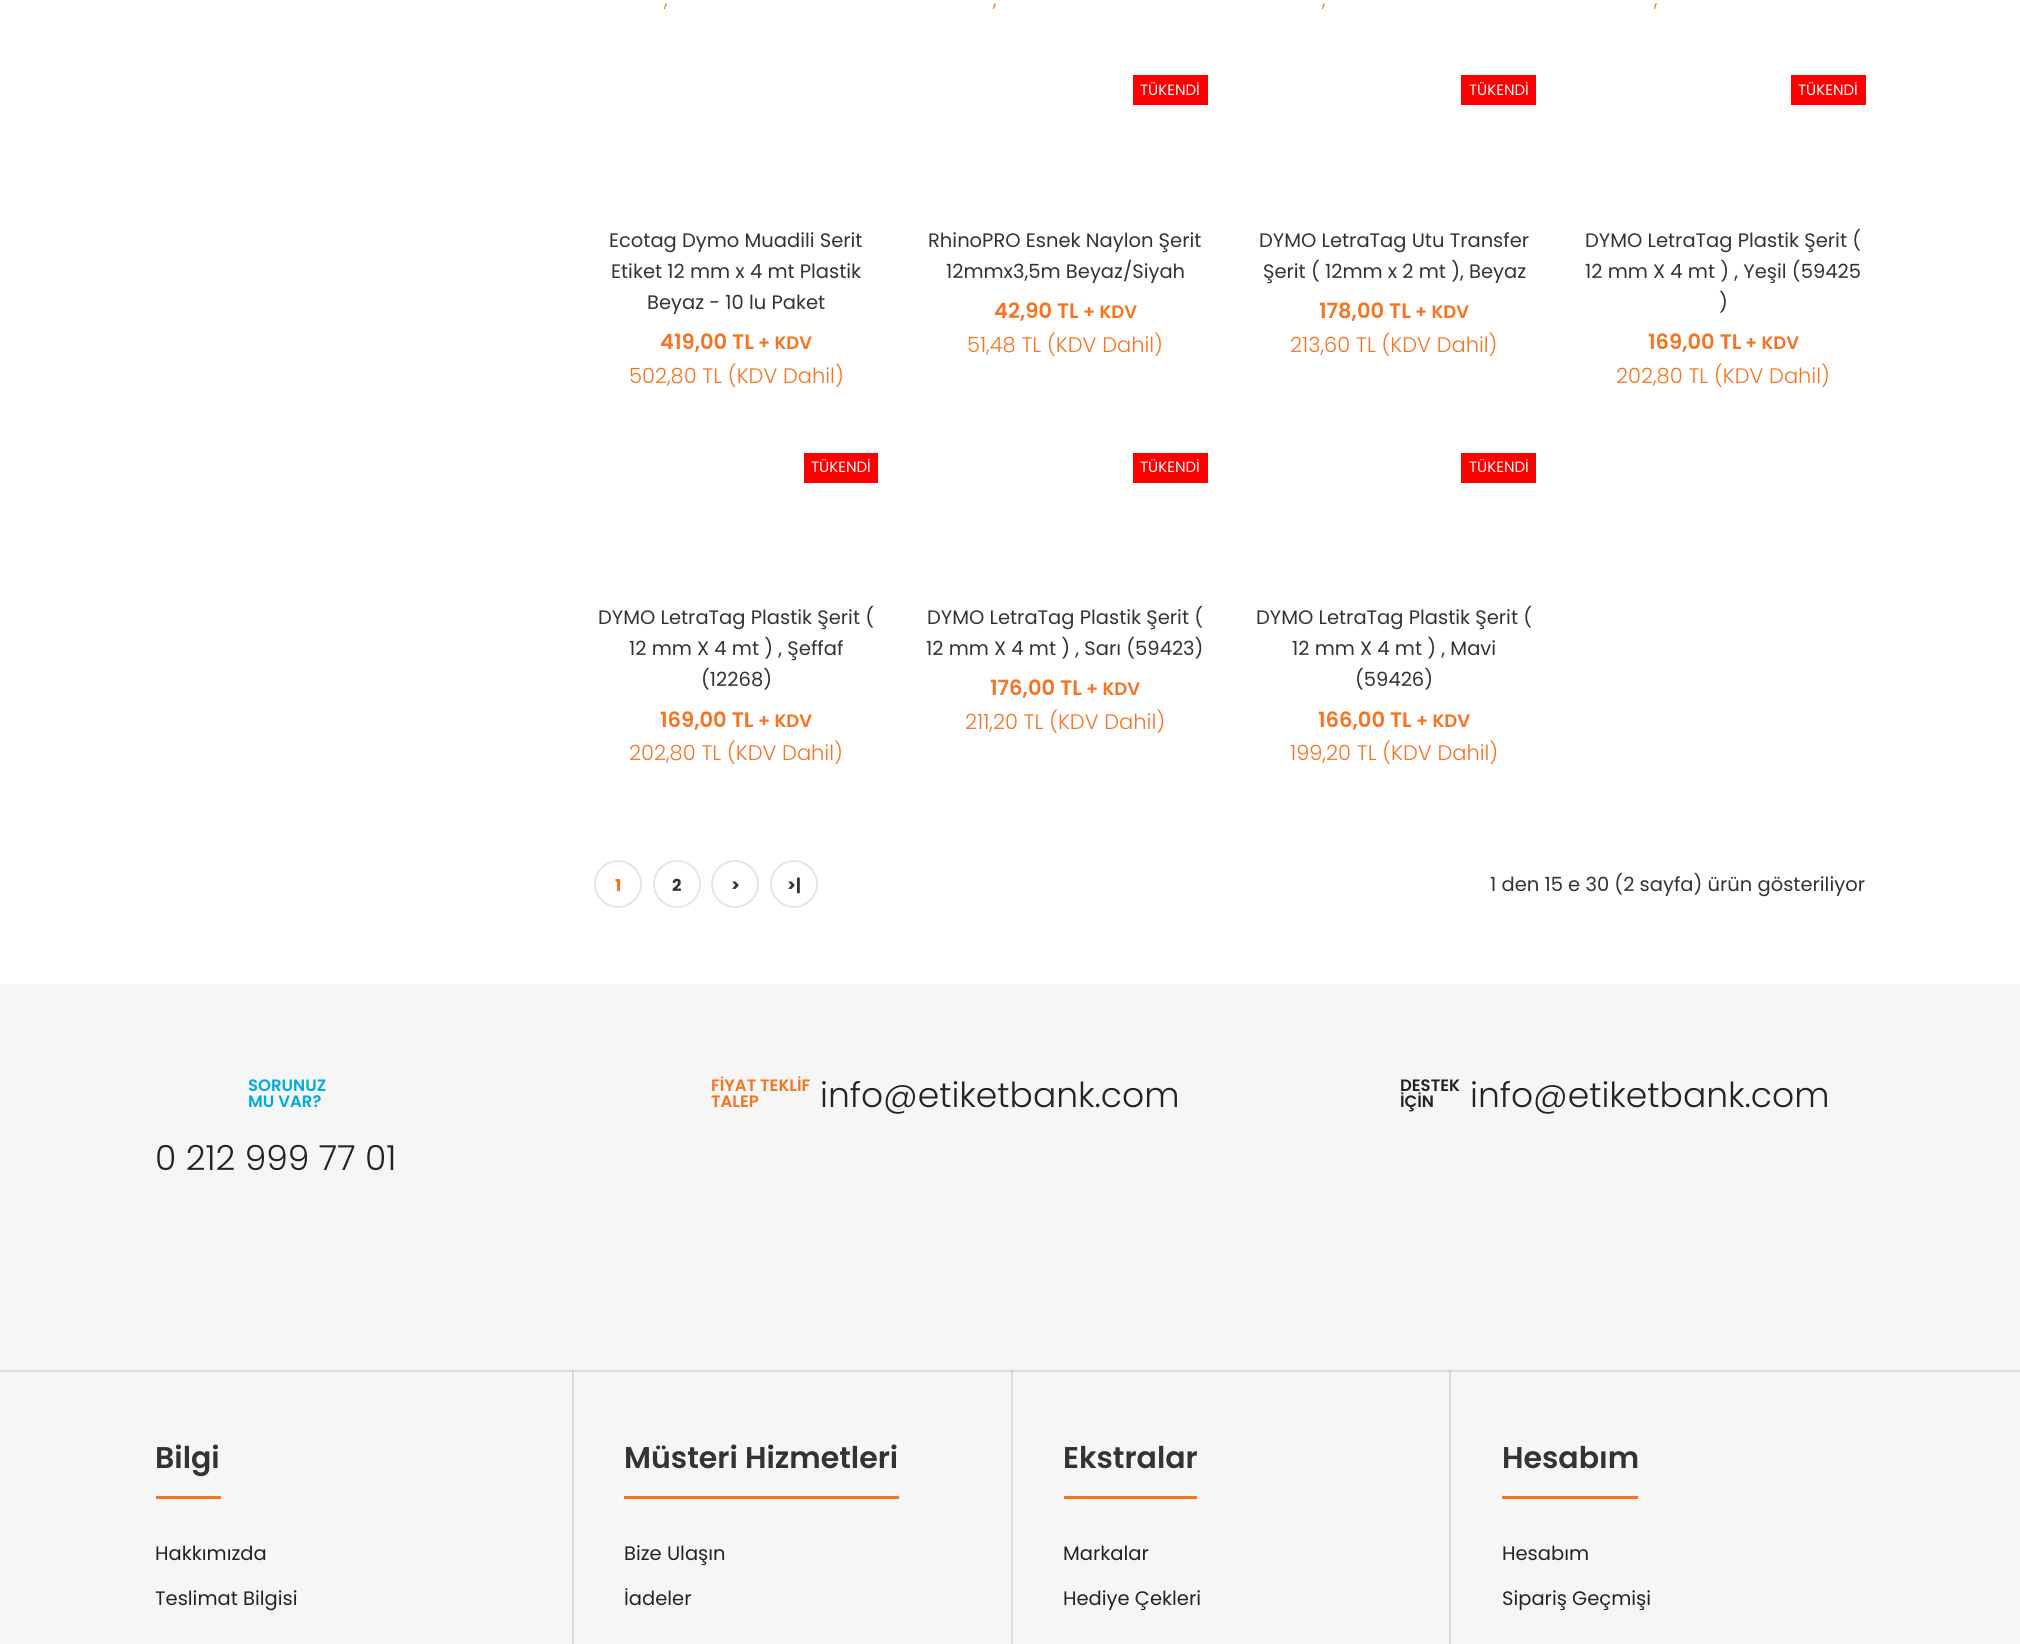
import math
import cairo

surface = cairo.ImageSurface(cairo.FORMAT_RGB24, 2020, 1644)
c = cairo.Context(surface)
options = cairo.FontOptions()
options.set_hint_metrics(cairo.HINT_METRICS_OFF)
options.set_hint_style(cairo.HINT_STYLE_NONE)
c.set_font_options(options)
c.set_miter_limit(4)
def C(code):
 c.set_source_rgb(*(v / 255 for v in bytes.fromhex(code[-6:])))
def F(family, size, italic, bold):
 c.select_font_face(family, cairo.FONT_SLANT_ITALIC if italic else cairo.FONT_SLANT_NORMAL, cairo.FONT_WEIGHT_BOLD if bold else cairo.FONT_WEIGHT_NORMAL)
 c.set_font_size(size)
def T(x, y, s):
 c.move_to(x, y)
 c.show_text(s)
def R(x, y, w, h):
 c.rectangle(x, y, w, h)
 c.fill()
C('ffffff')
c.paint()
F('Poppins Light',21,0,0)
C('f8721f')
T(664,6,',')
T(993,6,',')
T(1322,6,',')
T(1654,6,',')
F('Poppins',19.5,0,0)
C('333333')
T(609,247,'Ecotag Dymo Muadili Serit')
T(611,278,'Etiket 12 mm x 4 mt Plastik')
T(647,309,'Beyaz - 10 lu Paket')
F('Poppins SemiBold',21,0,0)
C('f8721f')
T(660,349,'419,00 TL')
F('Poppins SemiBold',18,0,0)
T(758,349,'+ KDV')
F('Poppins Light',21,0,0)
T(629,383,'502,80 TL (KDV Dahil)')
C('ff0000')
R(1133,75,75,30)
F('Poppins',15,0,0)
C('ffffff')
T(1140,95,'TÜKENDİ')
F('Poppins',19.5,0,0)
C('333333')
T(928,247,'RhinoPRO Esnek Naylon Şerit')
T(946,278,'12mmx3,5m Beyaz/Siyah')
F('Poppins SemiBold',21,0,0)
C('f8721f')
T(994,318,'42,90 TL')
F('Poppins SemiBold',18,0,0)
T(1083,318,'+ KDV')
F('Poppins Light',21,0,0)
T(967,352,'51,48 TL (KDV Dahil)')
C('ff0000')
R(1461,75,75,30)
F('Poppins',15,0,0)
C('ffffff')
T(1469,95,'TÜKENDİ')
F('Poppins',19.5,0,0)
C('333333')
T(1259,247,'DYMO LetraTag Utu Transfer')
T(1263,278,'Şerit ( 12mm x 2 mt ), Beyaz')
F('Poppins SemiBold',21,0,0)
C('f8721f')
T(1319,318,'178,00 TL')
F('Poppins SemiBold',18,0,0)
T(1415,318,'+ KDV')
F('Poppins Light',21,0,0)
T(1290,352,'213,60 TL (KDV Dahil)')
C('ff0000')
R(1791,75,75,30)
F('Poppins',15,0,0)
C('ffffff')
T(1798,95,'TÜKENDİ')
F('Poppins',19.5,0,0)
C('333333')
T(1585,247,'DYMO LetraTag Plastik Şerit (')
T(1585,278,'12 mm X 4 mt ) , Yeşil (59425')
T(1719,309,')')
F('Poppins SemiBold',21,0,0)
C('f8721f')
T(1648,349,'169,00 TL')
F('Poppins SemiBold',18,0,0)
T(1745,349,'+ KDV')
F('Poppins Light',21,0,0)
T(1616,383,'202,80 TL (KDV Dahil)')
C('ff0000')
R(804,453,74,30)
F('Poppins',15,0,0)
C('ffffff')
T(811,472,'TÜKENDİ')
F('Poppins',19.5,0,0)
C('333333')
T(598,624,'DYMO LetraTag Plastik Şerit (')
T(629,655,'12 mm X 4 mt ) , Şeffaf')
T(701,686,'(12268)')
F('Poppins SemiBold',21,0,0)
C('f8721f')
T(660,727,'169,00 TL')
F('Poppins SemiBold',18,0,0)
T(758,727,'+ KDV')
F('Poppins Light',21,0,0)
T(629,760,'202,80 TL (KDV Dahil)')
C('ff0000')
R(1133,453,75,30)
F('Poppins',15,0,0)
C('ffffff')
T(1140,472,'TÜKENDİ')
F('Poppins',19.5,0,0)
C('333333')
T(927,624,'DYMO LetraTag Plastik Şerit (')
T(926,655,'12 mm X 4 mt ) , Sarı (59423)')
F('Poppins SemiBold',21,0,0)
C('f8721f')
T(990,695,'176,00 TL')
F('Poppins SemiBold',18,0,0)
T(1086,695,'+ KDV')
F('Poppins Light',21,0,0)
T(965,729,'211,20 TL (KDV Dahil)')
C('ff0000')
R(1461,453,75,30)
F('Poppins',15,0,0)
C('ffffff')
T(1469,472,'TÜKENDİ')
F('Poppins',19.5,0,0)
C('333333')
T(1256,624,'DYMO LetraTag Plastik Şerit (')
T(1292,655,'12 mm X 4 mt ) , Mavi')
T(1355,686,'(59426)')
F('Poppins SemiBold',21,0,0)
C('f8721f')
T(1318,727,'166,00 TL')
F('Poppins SemiBold',18,0,0)
T(1416,727,'+ KDV')
F('Poppins Light',21,0,0)
T(1290,760,'199,20 TL (KDV Dahil)')
c.new_path()
c.arc(618,884,23,0,2 * math.pi)
C('e5e5e5')
c.stroke()
F('Poppins',16.5,0,1)
C('f8721f')
T(615,891,'1')
c.new_path()
c.arc(677,884,23,0,2 * math.pi)
C('e5e5e5')
c.stroke()
C('333333')
T(672,891,'2')
c.new_path()
c.arc(735,884,23,0,2 * math.pi)
C('e5e5e5')
c.stroke()
C('333333')
T(731,891,'>')
c.new_path()
c.arc(794,884,23,0,2 * math.pi)
C('e5e5e5')
c.stroke()
C('333333')
T(787,891,'>|')
F('Poppins',19.5,0,0)
T(1490,891,'1 den 15 e 30 (2 sayfa) ürün gösteriliyor')
C('f6f6f6')
R(0,984,2020,660)
C('dddddd')
R(1449,1370,2,274)
R(1011,1370,2,274)
R(572,1370,2,274)
F('Poppins SemiBold',16.5,0,0)
C('00abe0')
T(248,1091,'SORUNUZ')
T(248,1107,'MU VAR?')
F('Poppins Light',34.5,0,0)
C('232323')
T(155,1170,'0 212 999 77 01')
F('Poppins SemiBold',16.5,0,0)
C('f8721f')
T(711,1091,'FİYAT TEKLİF')
T(711,1107,'TALEP')
F('Poppins Light',34.5,0,0)
C('232323')
T(820,1107,'info@etiketbank.com')
F('Poppins SemiBold',16.5,0,0)
T(1400,1091,'DESTEK')
T(1400,1107,'İÇİN')
F('Poppins Light',34.5,0,0)
T(1470,1107,'info@etiketbank.com')
C('dddddd')
R(0,1370,2020,2)
C('c7c7c7')
R(1449,1370,2,2)
R(1011,1370,2,2)
R(572,1370,2,2)
C('f8721f')
R(156,1496,65,3)
F('Poppins SemiBold',30,0,0)
C('333333')
T(155,1468,'Bilgi')
F('Poppins',19.5,0,0)
C('232323')
T(155,1560,'Hakkımızda')
T(155,1605,'Teslimat Bilgisi')
C('f8721f')
R(624,1496,275,3)
F('Poppins SemiBold',30,0,0)
C('333333')
T(624,1468,'Müsteri Hizmetleri')
F('Poppins',19.5,0,0)
C('232323')
T(624,1560,'Bize Ulaşın')
T(624,1605,'İadeler')
C('f8721f')
R(1064,1496,133,3)
F('Poppins SemiBold',30,0,0)
C('333333')
T(1063,1468,'Ekstralar')
F('Poppins',19.5,0,0)
C('232323')
T(1063,1560,'Markalar')
T(1063,1605,'Hediye Çekleri')
C('f8721f')
R(1502,1496,136,3)
F('Poppins SemiBold',30,0,0)
C('333333')
T(1502,1468,'Hesabım')
F('Poppins',19.5,0,0)
C('232323')
T(1502,1560,'Hesabım')
T(1502,1605,'Sipariş Geçmişi')
surface.write_to_png('o.png')
